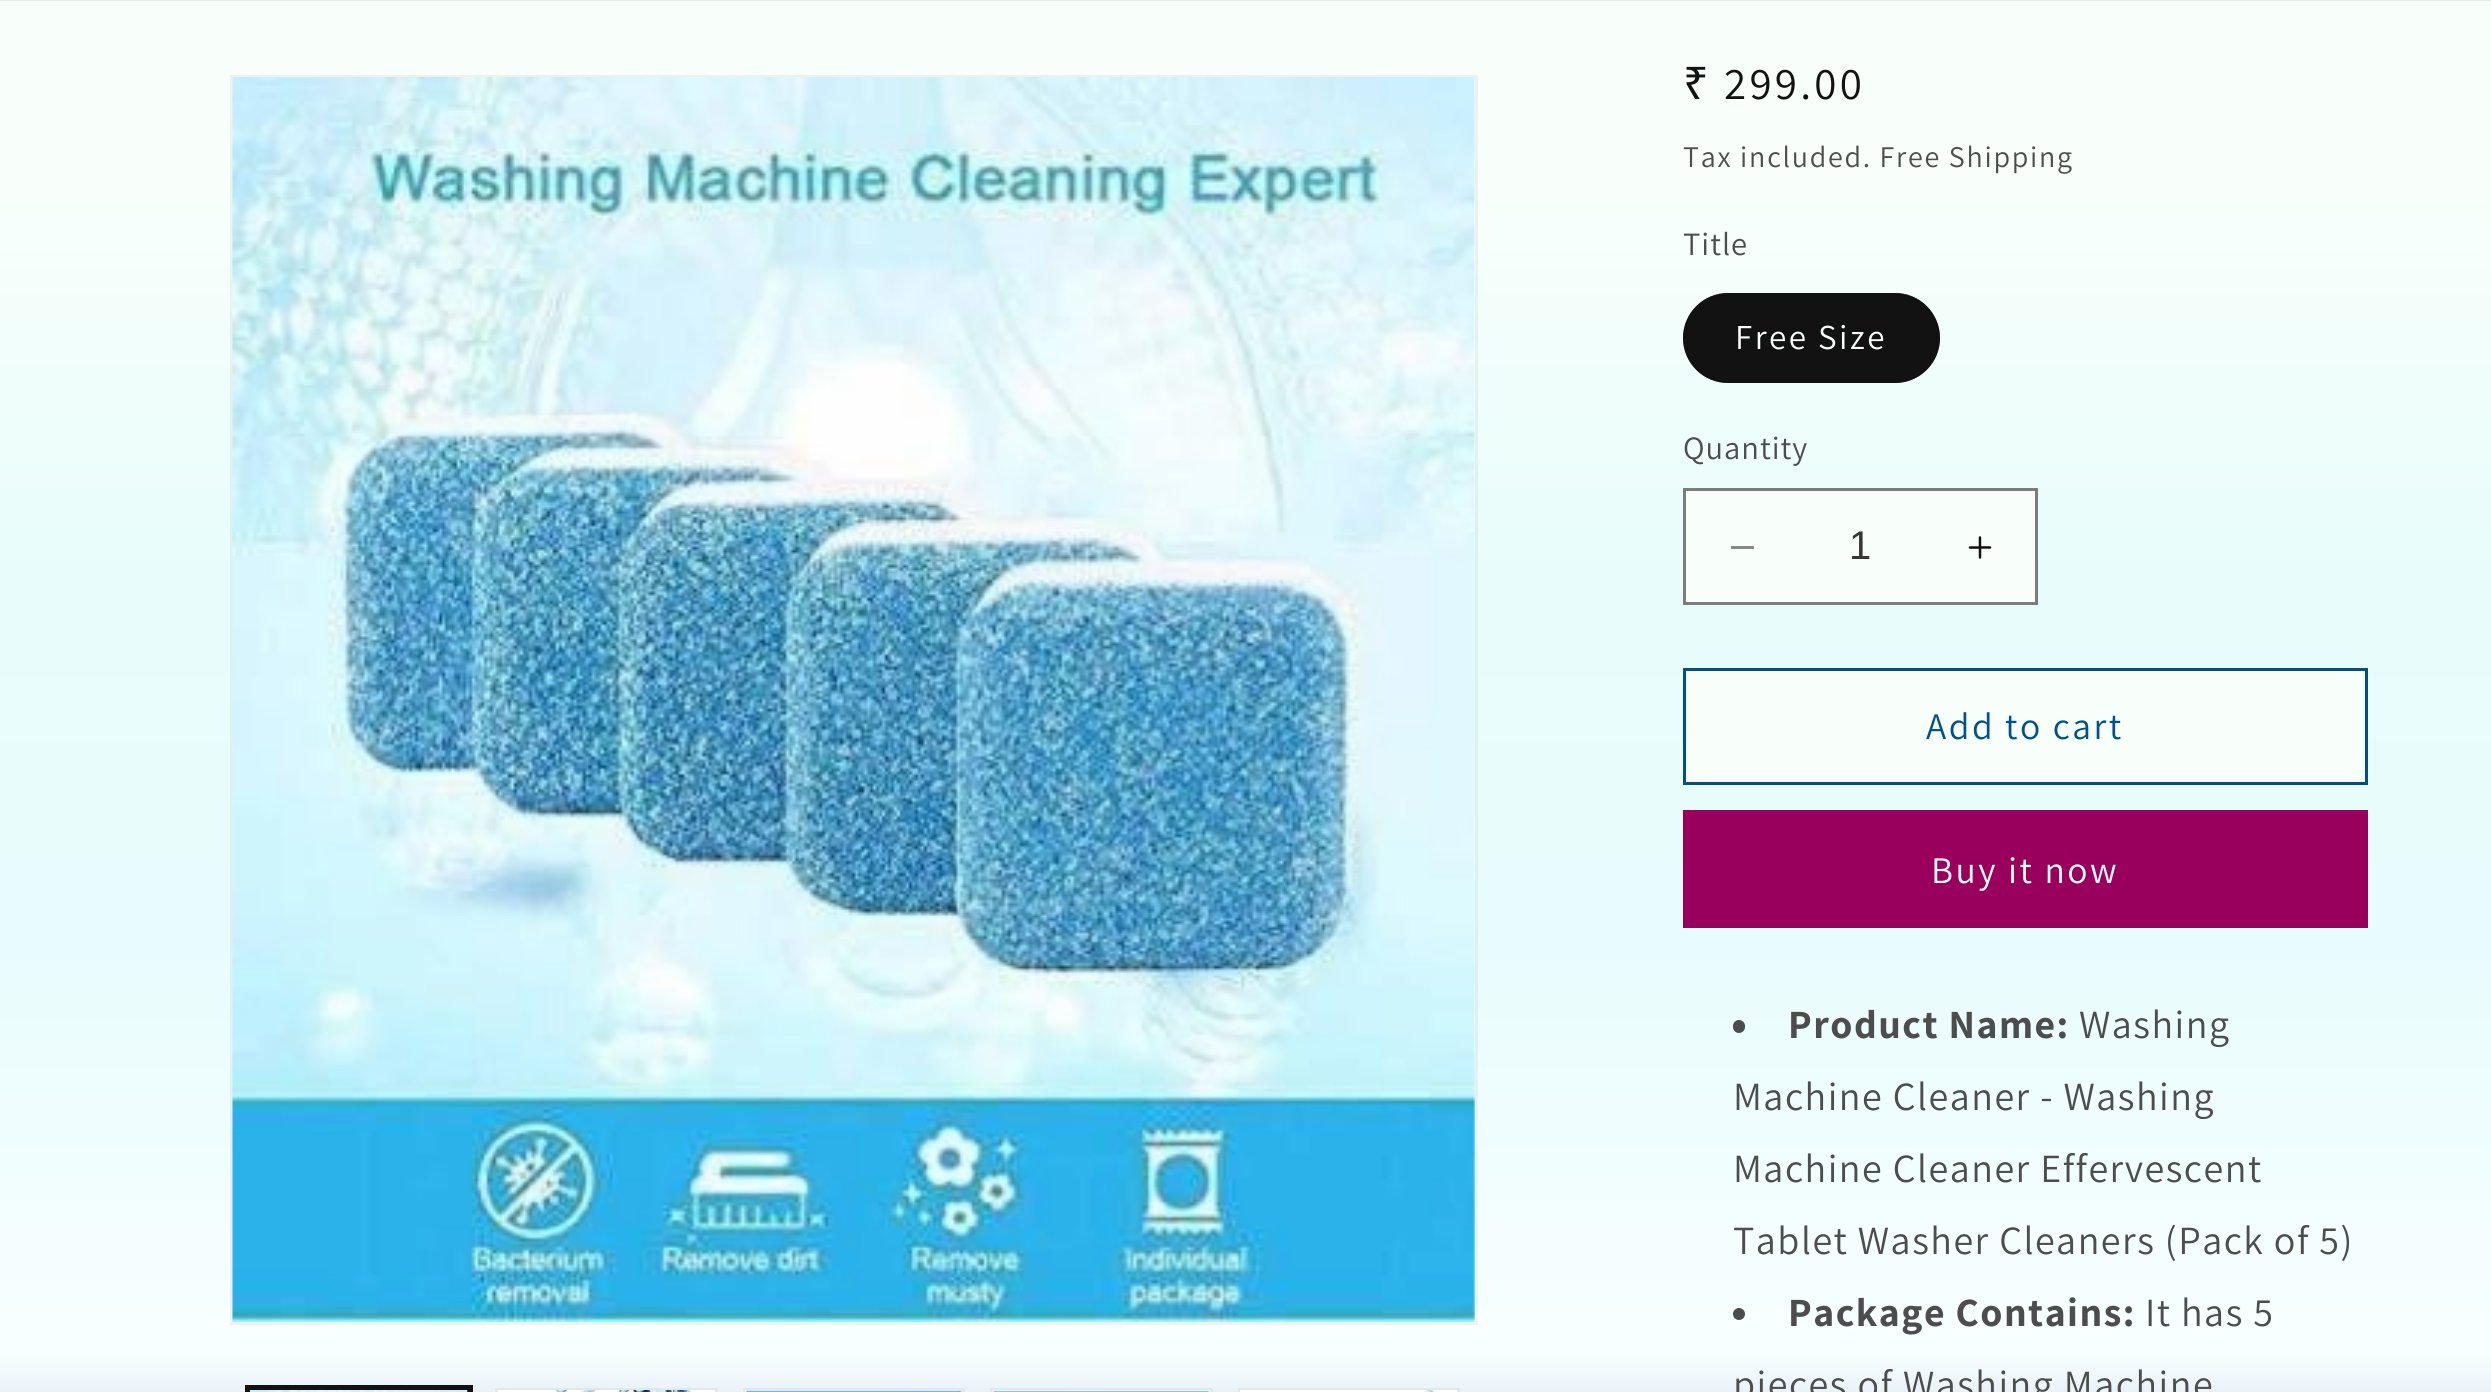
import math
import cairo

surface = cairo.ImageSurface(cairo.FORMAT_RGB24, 2491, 1392)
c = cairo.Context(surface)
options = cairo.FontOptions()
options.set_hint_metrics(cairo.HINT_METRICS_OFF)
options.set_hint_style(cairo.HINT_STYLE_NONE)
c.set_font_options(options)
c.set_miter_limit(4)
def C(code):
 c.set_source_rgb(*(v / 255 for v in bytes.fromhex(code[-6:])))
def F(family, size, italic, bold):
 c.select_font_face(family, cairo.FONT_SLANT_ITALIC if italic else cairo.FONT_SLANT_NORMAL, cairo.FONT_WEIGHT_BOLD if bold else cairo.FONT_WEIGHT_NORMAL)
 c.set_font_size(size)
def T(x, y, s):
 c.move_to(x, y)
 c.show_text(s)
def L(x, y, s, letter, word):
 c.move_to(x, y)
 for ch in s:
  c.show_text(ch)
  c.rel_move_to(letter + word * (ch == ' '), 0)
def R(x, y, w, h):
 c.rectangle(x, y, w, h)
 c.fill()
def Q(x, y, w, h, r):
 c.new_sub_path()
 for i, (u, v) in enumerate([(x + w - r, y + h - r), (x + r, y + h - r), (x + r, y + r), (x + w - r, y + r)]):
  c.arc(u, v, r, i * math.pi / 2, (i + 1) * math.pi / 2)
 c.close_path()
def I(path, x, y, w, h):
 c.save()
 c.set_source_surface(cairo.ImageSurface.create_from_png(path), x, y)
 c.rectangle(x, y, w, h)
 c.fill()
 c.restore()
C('ffffff')
c.paint()
gradient = cairo.LinearGradient(1246,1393,1246,0)
gradient.add_color_stop_rgba(0,0.914,0.949,0.973,1)
gradient.add_color_stop_rgba(.03,0.973,1,1,1)
gradient.add_color_stop_rgba(.32,0.914,0.988,0.992,1)
gradient.add_color_stop_rgba(.59,0.91,0.992,0.984,1)
gradient.add_color_stop_rgba(.87,0.973,1,0.984,1)
c.set_source(gradient)
R(0,1,2491,1391)
gradient = cairo.LinearGradient(1246,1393,1246,0)
gradient.add_color_stop_rgba(0,0.847,0.878,0.902,1)
gradient.add_color_stop_rgba(.03,0.902,0.925,0.925,1)
gradient.add_color_stop_rgba(.32,0.847,0.914,0.918,1)
gradient.add_color_stop_rgba(.59,0.843,0.918,0.91,1)
gradient.add_color_stop_rgba(.87,0.902,0.925,0.91,1)
c.set_source(gradient)
R(0,0,2491,1)
c.rectangle(231.5,76.5,1245,1247)
c.set_source_rgba(0.071,0.071,0.071,0.05)
c.set_line_width(3)
c.stroke()
I('1.png',232,77,1243,1245)
c.rectangle(246.5,1386.5,225,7)
C('121212')
c.stroke()
c.rectangle(249.5,1389.5,219,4)
c.stroke()
I('2.png',250,1390,218,2)
c.rectangle(496.5,1389.5,220,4)
C('e0e8ed')
c.stroke()
I('3.png',497,1390,218,2)
c.rectangle(744.5,1389.5,219,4)
c.stroke()
I('4.png',745,1390,218,2)
c.rectangle(991.5,1389.5,220,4)
c.stroke()
I('5.png',992,1390,218,2)
c.rectangle(1239.5,1389.5,219,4)
c.stroke()
I('6.png',1240,1390,218,2)
F('Noto Sans',45,0,0)
C('121212')
L(1683,99,'₹',3.25,0)
F('Assistant',45,0,0)
L(1724,99,'299.00',3.25,0)
F('Assistant',30,0,0)
C('4c4d4c')
L(1683,167,'Tax included. Free Shipping',1.75,0)
F('Assistant',32.5,0,0)
L(1683,255,'Title',1,0)
C('121212')
Q(1683,293,257,90,45)
c.fill()
Q(1684.5,294.5,254,87,43.5)
c.set_source_rgba(0.071,0.071,0.071,0.55)
c.stroke()
F('Assistant',35,0,0)
C('f8fffb')
L(1735,349,'Free Size',2.5,0)
F('Assistant',32.5,0,0)
C('4c4d4c')
L(1683,459,'Quantity',1,0)
C('f8fffb')
R(1686,491,349,111)
C('858987')
R(1731,546,23,3)
I('7.png',1968,536,24,23)
c.rectangle(1684.5,489.5,352,114)
C('7a7d7b')
c.stroke()
F('Liberation Sans',40,0,0)
C('353635')
T(1849,559,'1')
C('f8fffb')
R(1686,671,679,111)
c.rectangle(1684.5,669.5,682,114)
C('00508b')
c.stroke()
F('Assistant',37.5,0,0)
L(1926,739,'Add to cart',2.5,0)
C('99005e')
R(1683,810,685,118)
C('ffffff')
L(1931,883,'Buy it now',2.5,0)
C('494d4d')
Q(1733,1020,12,13,6)
c.fill()
F('Assistant',40,0,1)
C('4c4d4c')
L(1788,1038,'Product Name:',1.5,0)
F('Assistant',40,0,0)
L(2079,1038,'Washing',1.5,0)
L(1733,1110,'Machine Cleaner - Washing',1.5,0)
L(1733,1182,'Machine Cleaner Effervescent',1.5,0)
L(1733,1254,'Tablet Washer Cleaners (Pack of 5)',1.5,0)
C('4b4d4d')
c.new_path()
c.arc(1739,1314,6,0,2 * math.pi)
c.fill()
F('Assistant',40,0,1)
C('4c4d4c')
L(1788,1326,'Package Contains:',1.5,0)
F('Assistant',40,0,0)
L(2145,1326,'It has 5',1.5,0)
L(1733,1398,'pieces of Washing Machine',1.5,0)
surface.write_to_png('o.png')
